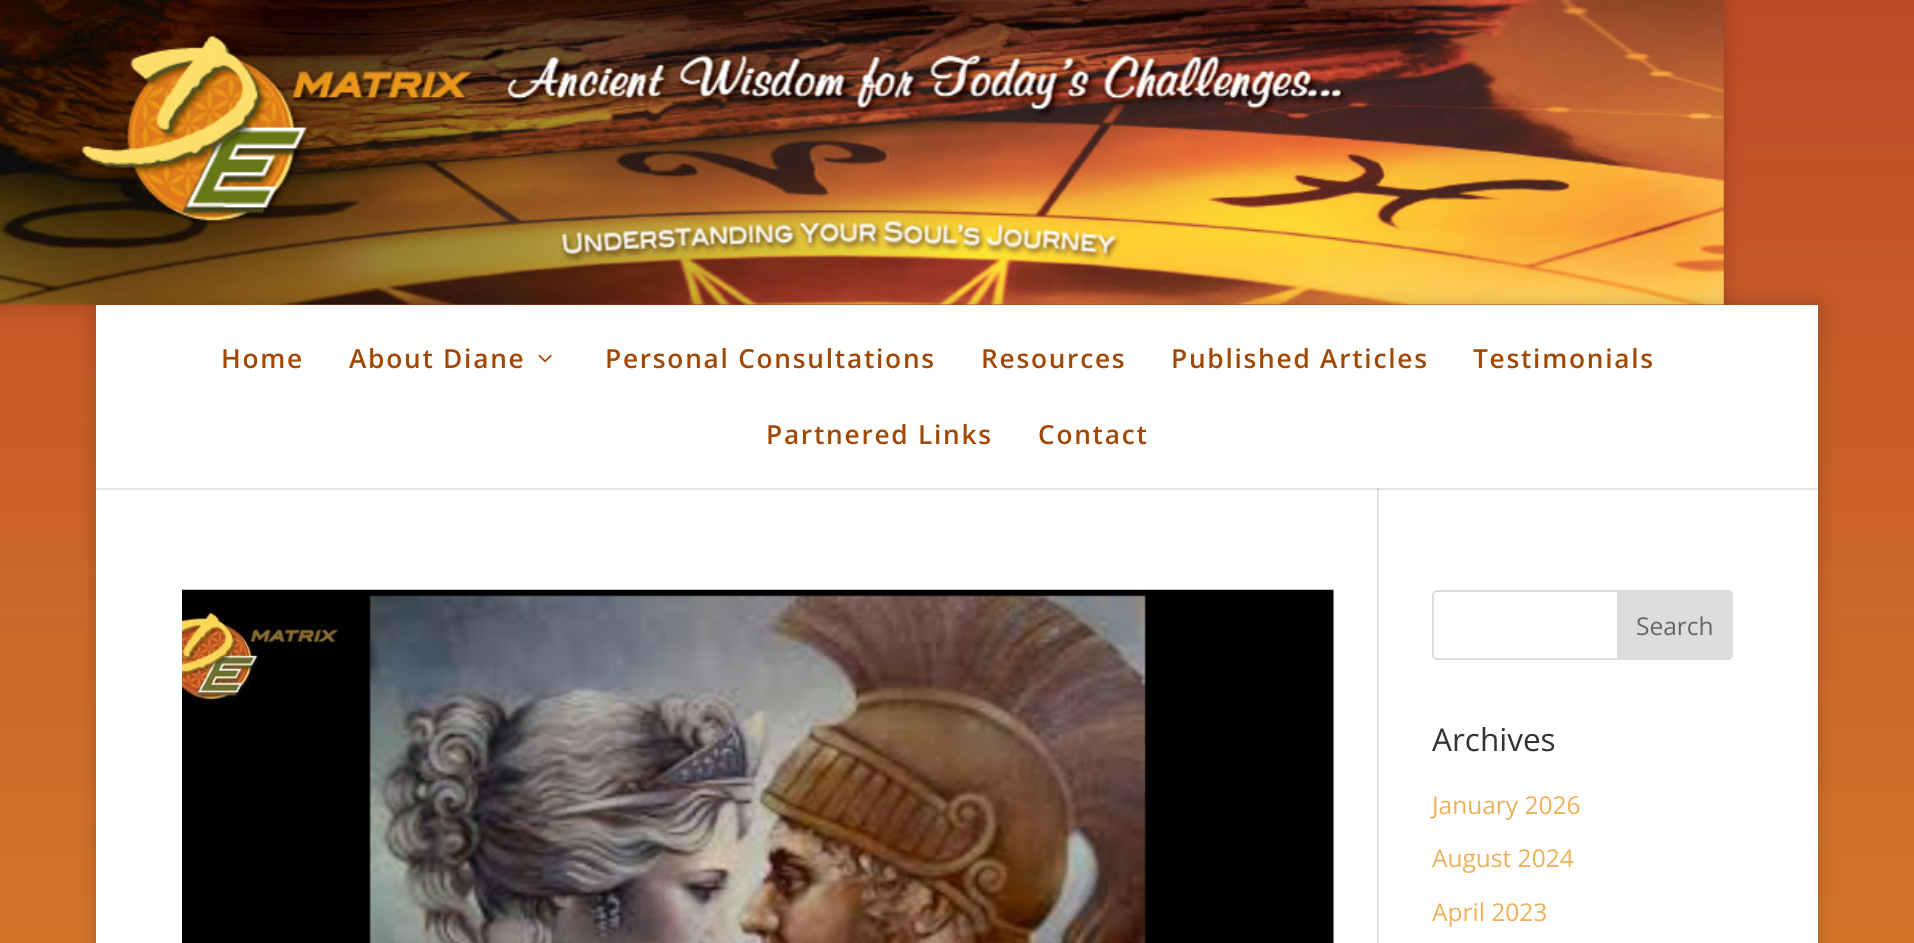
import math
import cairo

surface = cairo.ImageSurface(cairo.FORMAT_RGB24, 1914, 943)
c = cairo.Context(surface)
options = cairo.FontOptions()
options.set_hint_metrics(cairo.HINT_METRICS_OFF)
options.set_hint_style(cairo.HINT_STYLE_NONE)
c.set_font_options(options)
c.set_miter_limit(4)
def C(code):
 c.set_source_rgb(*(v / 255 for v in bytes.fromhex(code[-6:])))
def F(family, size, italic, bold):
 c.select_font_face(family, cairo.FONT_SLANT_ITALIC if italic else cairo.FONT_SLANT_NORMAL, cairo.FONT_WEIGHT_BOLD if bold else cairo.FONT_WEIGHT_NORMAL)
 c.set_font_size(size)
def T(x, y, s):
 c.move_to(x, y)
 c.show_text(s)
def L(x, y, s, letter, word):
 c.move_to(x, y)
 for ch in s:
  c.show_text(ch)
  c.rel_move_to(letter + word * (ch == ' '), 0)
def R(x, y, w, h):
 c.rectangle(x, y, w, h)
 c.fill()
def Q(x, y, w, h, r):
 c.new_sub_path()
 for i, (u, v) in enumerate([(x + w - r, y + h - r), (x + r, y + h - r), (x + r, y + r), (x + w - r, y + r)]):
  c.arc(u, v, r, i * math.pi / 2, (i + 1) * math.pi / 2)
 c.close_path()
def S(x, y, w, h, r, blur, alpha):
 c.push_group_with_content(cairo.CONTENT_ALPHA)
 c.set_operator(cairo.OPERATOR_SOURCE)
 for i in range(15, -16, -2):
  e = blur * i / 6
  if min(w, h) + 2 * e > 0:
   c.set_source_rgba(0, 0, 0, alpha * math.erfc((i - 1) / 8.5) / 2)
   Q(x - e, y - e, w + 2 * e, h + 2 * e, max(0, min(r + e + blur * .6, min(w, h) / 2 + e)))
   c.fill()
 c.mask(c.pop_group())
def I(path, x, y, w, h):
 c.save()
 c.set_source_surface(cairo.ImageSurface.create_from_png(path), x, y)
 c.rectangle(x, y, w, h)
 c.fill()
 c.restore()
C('ffffff')
c.paint()
I('1.png',0,0,1914,943)
C('000000')
S(0,0,1724,305,0,9,.2)
I('2.png',0,0,1724,305)
S(96,305,1722,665,0,9,.2)
C('ffffff')
R(96,305,1722,638)
C('e2e2e2')
R(1377,488,2,455)
c.set_source_rgba(0,0,0,0.1)
c.new_path()
c.move_to(96,306)
c.line_to(96,490)
c.line_to(1818,490)
c.line_to(1818,488)
c.line_to(96,488)
c.close_path()
c.fill()
F('Open Sans SemiBold',26.25,0,0)
C('a04804')
L(221,368,'Home',1.75,0)
L(349,368,'About Diane',1.75,0)
I('3.png',538,354,14,9)
L(605,368,'Personal Consultations',1.75,0)
L(981,368,'Resources',1.75,0)
L(1171,368,'Published Articles',1.75,0)
L(1473,368,'Testimonials',1.75,0)
L(766,444,'Partnered Links',1.75,0)
L(1038,444,'Contact',1.75,0)
I('4.png',182,589,1152,354)
Q(1433,591,299,68,4)
C('dddddd')
c.stroke()
c.new_path()
c.move_to(1618,591)
c.line_to(1728,591)
c.curve_to(1730,591,1732,593,1732,595)
c.line_to(1732,655)
c.curve_to(1732,657,1730,659,1728,659)
c.line_to(1618,659)
c.close_path()
c.fill_preserve()
c.stroke()
F('Open Sans',24.5,0,0)
C('666666')
T(1636,635,'Search')
F('Open Sans',31.5,0,0)
C('333333')
T(1432,751,'Archives')
F('Open Sans',24.5,0,0)
C('edb059')
T(1432,814,'January 2026')
T(1432,867,'August 2024')
T(1432,921,'April 2023')
surface.write_to_png('o.png')
